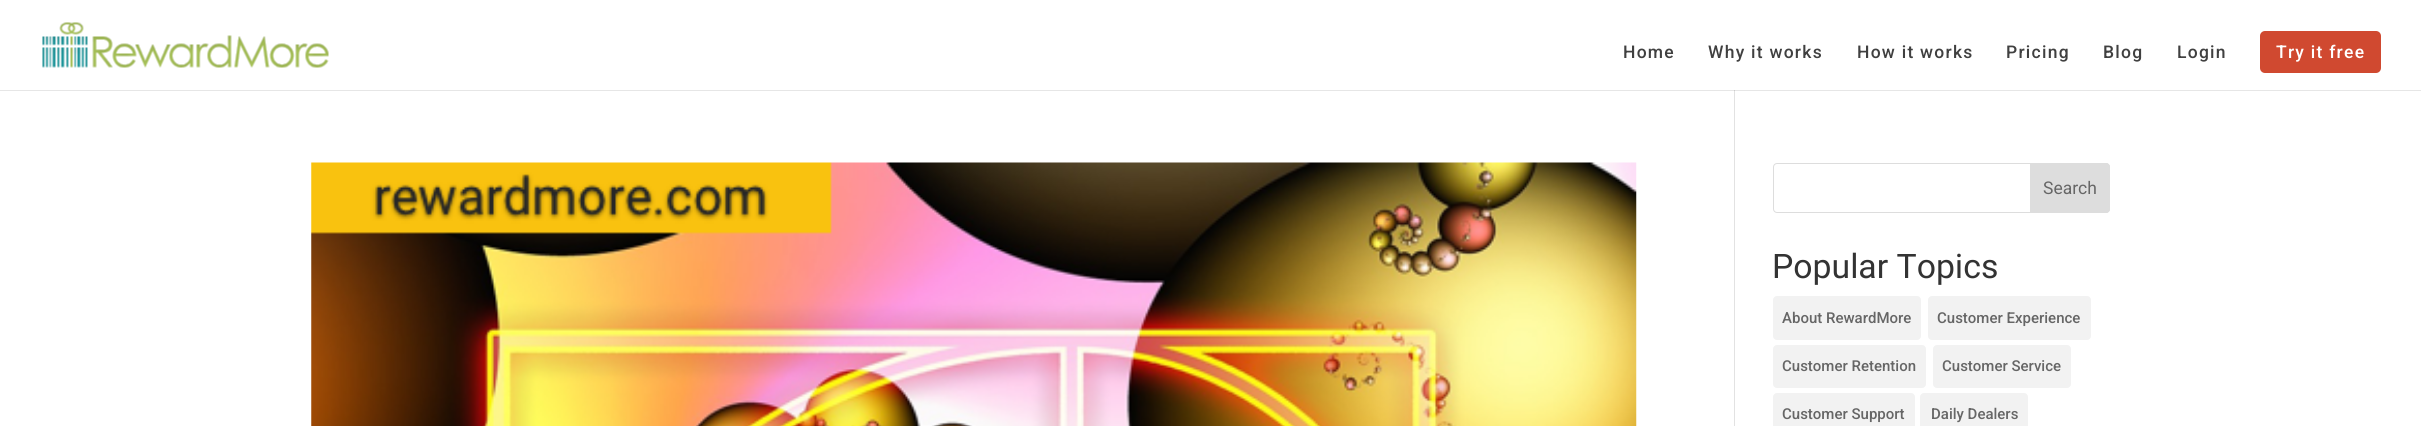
import math
import cairo

surface = cairo.ImageSurface(cairo.FORMAT_RGB24, 2421, 426)
c = cairo.Context(surface)
options = cairo.FontOptions()
options.set_hint_metrics(cairo.HINT_METRICS_OFF)
options.set_hint_style(cairo.HINT_STYLE_NONE)
c.set_font_options(options)
c.set_miter_limit(4)
def C(code):
 c.set_source_rgb(*(v / 255 for v in bytes.fromhex(code[-6:])))
def F(family, size, italic, bold):
 c.select_font_face(family, cairo.FONT_SLANT_ITALIC if italic else cairo.FONT_SLANT_NORMAL, cairo.FONT_WEIGHT_BOLD if bold else cairo.FONT_WEIGHT_NORMAL)
 c.set_font_size(size)
def T(x, y, s):
 c.move_to(x, y)
 c.show_text(s)
def L(x, y, s, letter, word):
 c.move_to(x, y)
 for ch in s:
  c.show_text(ch)
  c.rel_move_to(letter + word * (ch == ' '), 0)
def R(x, y, w, h):
 c.rectangle(x, y, w, h)
 c.fill()
def Q(x, y, w, h, r):
 c.new_sub_path()
 for i, (u, v) in enumerate([(x + w - r, y + h - r), (x + r, y + h - r), (x + r, y + r), (x + w - r, y + r)]):
  c.arc(u, v, r, i * math.pi / 2, (i + 1) * math.pi / 2)
 c.close_path()
def I(path, x, y, w, h):
 c.save()
 c.set_source_surface(cairo.ImageSurface.create_from_png(path), x, y)
 c.rectangle(x, y, w, h)
 c.fill()
 c.restore()
C('ffffff')
c.paint()
C('e6e6e6')
R(0,90,2421,1)
I('1.png',42,22,287,46)
F('Roboto Medium',17.5,0,0)
C('404040')
L(1623,58,'Home',1.25,0)
L(1708,58,'Why it works',1.25,0)
L(1857,58,'How it works',1.25,0)
L(2006,58,'Pricing',1.25,0)
L(2103,58,'Blog',1.25,0)
L(2177,58,'Login',1.25,0)
C('d04930')
Q(2260,31,121,42,5)
c.fill()
C('ffffff')
L(2276,58,'Try it free',1.25,0)
C('e2e2e2')
R(1734,90,1,336)
C('cbcbcb')
R(1734,90,1,1)
I('2.png',311,162,1326,264)
Q(1773.5,163.5,336,49,3.5)
C('dddddd')
c.set_line_width(1)
c.stroke()
c.new_path()
c.move_to(2030.5,163.5)
c.line_to(2106,163.5)
c.curve_to(2108,163.5,2109.5,165,2109.5,167)
c.line_to(2109.5,209)
c.curve_to(2109.5,211,2108,212.5,2106,212.5)
c.line_to(2030.5,212.5)
c.close_path()
c.fill_preserve()
c.stroke()
F('Roboto',17.5,0,0)
C('666666')
T(2043,194,'Search')
F('Heebo',33.75,0,0)
C('333333')
T(1772,278,'Popular Topics')
C('f2f2f2')
Q(1773,296,148,44,4)
c.fill()
F('Roboto Medium',15,0,0)
C('666666')
T(1782,323,'About RewardMore')
C('f2f2f2')
Q(1928,296,163,44,4)
c.fill()
C('666666')
T(1937,323,'Customer Experience')
C('f2f2f2')
Q(1773,345,153,43,4)
c.fill()
C('666666')
T(1782,371,'Customer Retention')
C('f2f2f2')
Q(1933,345,138,43,4)
c.fill()
C('666666')
T(1942,371,'Customer Service')
C('f2f2f2')
Q(1773,393,142,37,4)
c.fill()
C('666666')
T(1782,419,'Customer Support')
C('f2f2f2')
Q(1920,393,108,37,4)
c.fill()
C('666666')
T(1931,419,'Daily Dealers')
surface.write_to_png('o.png')
